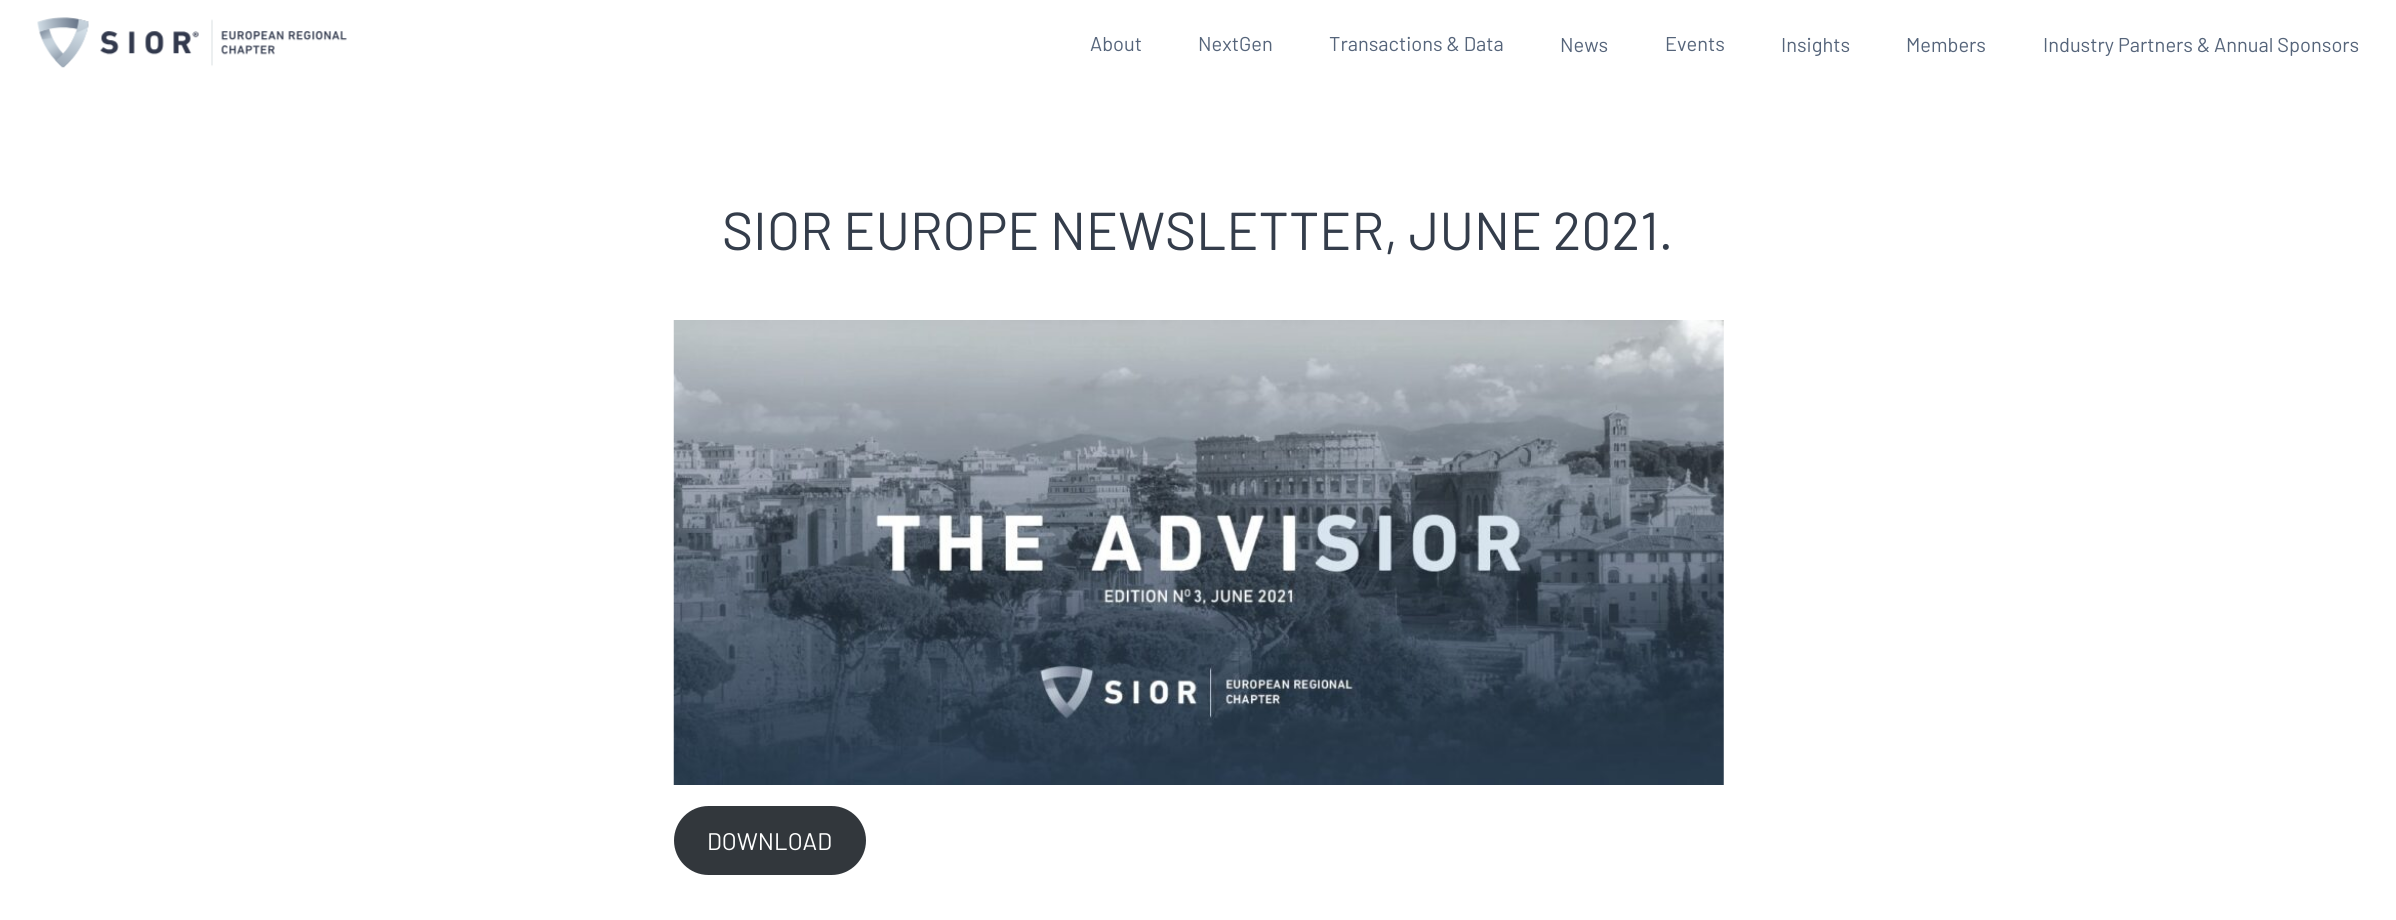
import math
import cairo

surface = cairo.ImageSurface(cairo.FORMAT_RGB24, 2396, 920)
c = cairo.Context(surface)
options = cairo.FontOptions()
options.set_hint_metrics(cairo.HINT_METRICS_OFF)
options.set_hint_style(cairo.HINT_STYLE_NONE)
c.set_font_options(options)
c.set_miter_limit(4)
def C(code):
 c.set_source_rgb(*(v / 255 for v in bytes.fromhex(code[-6:])))
def F(family, size, italic, bold):
 c.select_font_face(family, cairo.FONT_SLANT_ITALIC if italic else cairo.FONT_SLANT_NORMAL, cairo.FONT_WEIGHT_BOLD if bold else cairo.FONT_WEIGHT_NORMAL)
 c.set_font_size(size)
def T(x, y, s):
 c.move_to(x, y)
 c.show_text(s)
def Q(x, y, w, h, r):
 c.new_sub_path()
 for i, (u, v) in enumerate([(x + w - r, y + h - r), (x + r, y + h - r), (x + r, y + r), (x + w - r, y + r)]):
  c.arc(u, v, r, i * math.pi / 2, (i + 1) * math.pi / 2)
 c.close_path()
def I(path, x, y, w, h):
 c.save()
 c.set_source_surface(cairo.ImageSurface.create_from_png(path), x, y)
 c.rectangle(x, y, w, h)
 c.fill()
 c.restore()
C('ffffff')
c.paint()
I('1.png',37,17,310,51)
F('Barlow',20,0,0)
C('55647a')
T(1090,51,'About')
T(1198,51,'NextGen')
T(1329,51,'Transactions & Data')
T(1560,52,'News')
T(1665,51,'Events')
T(1781,52,'Insights')
T(1906,52,'Members')
T(2043,52,'Industry Partners & Annual Sponsors')
F('Barlow',53.25,0,0)
C('343d4b')
T(722,250,'SIOR EUROPE NEWSLETTER, JUNE 2021.')
I('2.png',673,320,1051,465)
C('32373c')
Q(674,806,192,69,34.5)
c.fill()
F('Barlow',24,0,0)
C('ffffff')
T(707,850,'DOWNLOAD')
surface.write_to_png('o.png')
